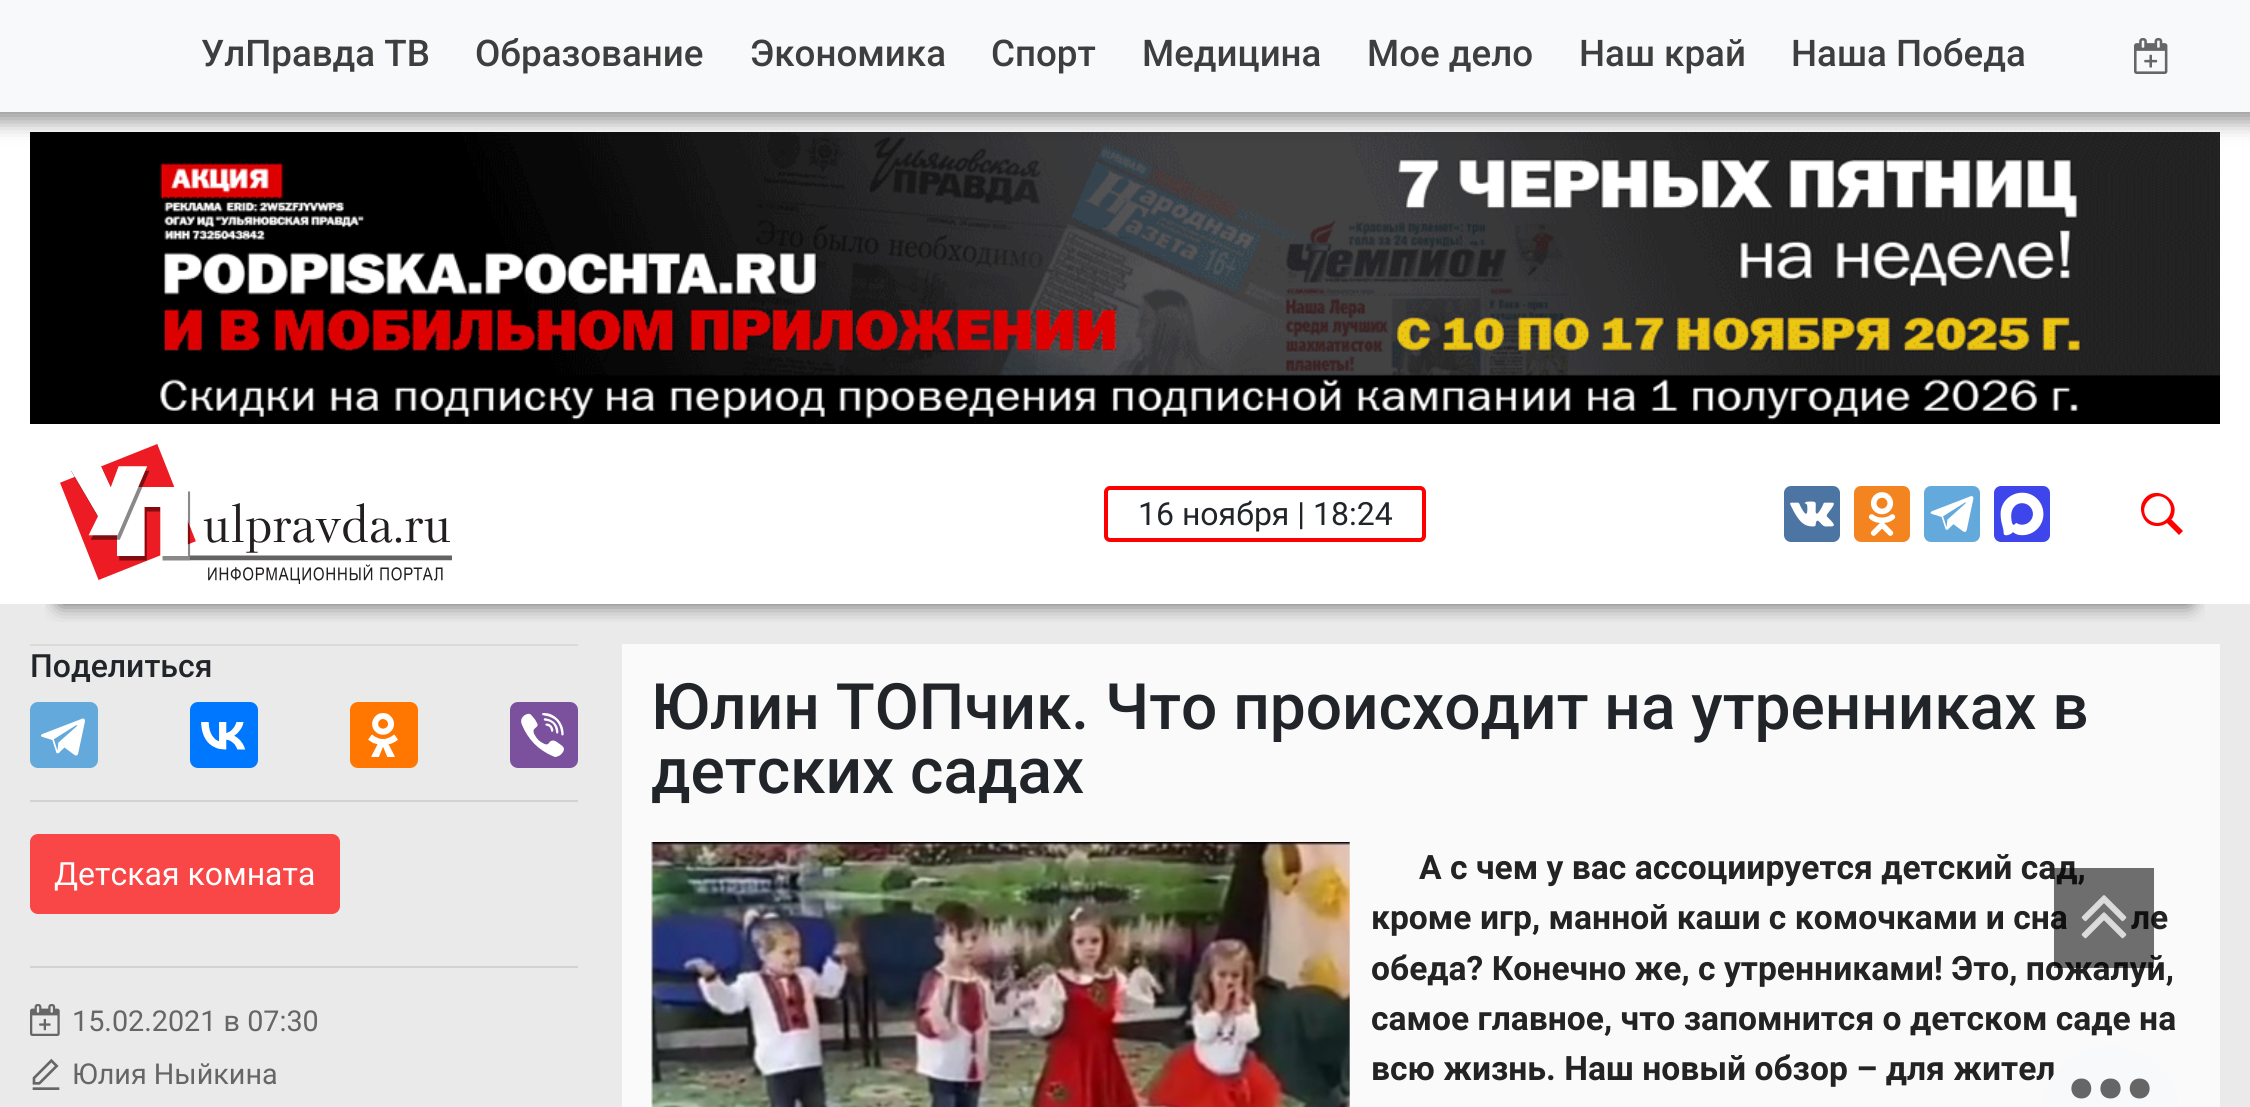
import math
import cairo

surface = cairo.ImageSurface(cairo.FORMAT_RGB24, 2250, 1107)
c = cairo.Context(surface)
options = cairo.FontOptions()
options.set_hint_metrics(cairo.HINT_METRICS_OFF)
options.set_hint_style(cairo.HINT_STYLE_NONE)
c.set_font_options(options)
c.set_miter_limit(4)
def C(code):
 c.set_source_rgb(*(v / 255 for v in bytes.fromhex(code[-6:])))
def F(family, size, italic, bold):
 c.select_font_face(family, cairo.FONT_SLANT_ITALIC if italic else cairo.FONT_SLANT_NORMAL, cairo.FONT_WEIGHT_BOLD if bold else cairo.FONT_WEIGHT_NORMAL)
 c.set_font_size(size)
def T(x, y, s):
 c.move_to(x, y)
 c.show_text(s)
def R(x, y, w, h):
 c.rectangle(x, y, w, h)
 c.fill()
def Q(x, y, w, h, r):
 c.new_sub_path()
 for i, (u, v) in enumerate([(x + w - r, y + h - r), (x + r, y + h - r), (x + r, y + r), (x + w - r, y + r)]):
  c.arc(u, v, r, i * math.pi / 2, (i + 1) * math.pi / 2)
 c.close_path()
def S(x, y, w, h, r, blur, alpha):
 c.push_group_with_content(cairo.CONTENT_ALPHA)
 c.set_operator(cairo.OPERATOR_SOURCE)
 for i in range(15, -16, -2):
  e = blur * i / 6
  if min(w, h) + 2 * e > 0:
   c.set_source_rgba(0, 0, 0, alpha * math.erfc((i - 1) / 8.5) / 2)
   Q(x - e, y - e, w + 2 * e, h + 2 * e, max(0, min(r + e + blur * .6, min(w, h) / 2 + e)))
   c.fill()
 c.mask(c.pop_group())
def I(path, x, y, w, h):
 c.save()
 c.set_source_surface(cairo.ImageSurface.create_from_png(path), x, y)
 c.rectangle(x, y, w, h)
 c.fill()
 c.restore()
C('ffffff')
c.paint()
I('2.png',30,132,2190,292)
C('000000')
S(-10,-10,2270,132,0,10,.4)
C('f8f9fa')
R(0,0,2250,112)
F('Roboto Medium',36.75,0,0)
C('3e3e3f')
T(201,66,'УлПравда ТВ')
T(475,66,'Образование')
T(750,66,'Экономика')
T(991,66,'Спорт')
T(1142,66,'Медицина')
T(1367,66,'Мое дело')
T(1579,66,'Наш край')
T(1791,66,'Наша Победа')
I('1.png',2134,38,34,36)
C('eaeaea')
R(0,604,2250,503)
c.save()
c.rectangle(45,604,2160,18)
c.clip()
C('000000')
S(60,484,2130,120,0,10,.6)
c.restore()
I('3.png',60,444,392,140)
Q(1106,488,318,52,4)
C('ff0000')
c.set_line_width(4)
c.stroke()
F('Roboto',32,0,0)
C('212529')
T(1138,525,'16 ноября | 18:24')
I('4.png',1784,486,56,56)
I('5.png',1854,486,56,56)
I('6.png',1924,486,56,56)
I('7.png',1994,486,56,56)
C('ff0000')
c.new_path()
c.move_to(2172,519)
c.curve_to(2184,499,2152,481,2142,503)
c.curve_to(2140,508,2141,514,2144,519)
c.curve_to(2149,527,2160,528,2167,523)
c.line_to(2179,535)
c.line_to(2183,531)
c.line_to(2171,519)
c.close_path()
c.move_to(2167,500)
c.curve_to(2179,513,2161,531,2148,519)
c.curve_to(2136,507,2155,488,2167,500)
c.close_path()
c.fill()
C('dadada')
R(30,644,548,2)
F('Roboto Medium',32,0,0)
C('212529')
T(30,677,'Поделиться')
C('64a9dc')
Q(30,702,68,66,8)
c.fill()
I('8.png',41,718,44,38)
C('0077ff')
Q(190,702,68,66,8)
c.fill()
I('9.png',201,722,45,28)
C('ff7700')
Q(350,702,68,66,8)
c.fill()
I('10.png',368,713,30,44)
C('7b519d')
Q(510,702,68,66,8)
c.fill()
I('11.png',521,713,43,44)
C('d3d3d3')
R(30,800,548,2)
C('f94646')
Q(30,834,310,80,8)
c.fill()
F('Roboto',32,0,0)
C('ffffff')
T(54,885,'Детская комната')
C('d3d3d3')
R(30,966,548,2)
I('12.png',30,1004,30,32)
F('Roboto',28.75,0,0)
C('666666')
T(72,1031,'15.02.2021 в 07:30')
I('13.png',32,1058,28,32)
T(72,1084,'Юлия Ныйкина')
C('fafafa')
R(622,644,1598,463)
F('Roboto Medium',64,0,0)
C('212529')
T(651,729,'Юлин ТОПчик. Что происходит на утренниках в')
T(651,793,'детских садах')
I('14.png',651,842,699,265)
F('Roboto',33.6,0,1)
C('232323')
T(1419,879,'А с чем у вас ассоциируется детский сад,')
T(1371,929,'кроме игр, манной каши с комочками и сна')
T(2131,929,'ле')
T(1371,980,'обеда? Конечно же, с утренниками! Это, пожалуй,')
T(1371,1030,'самое главное, что запомнится о детском саде на')
T(1371,1080,'всю жизнь. Наш новый обзор – для жител')
c.set_source_rgba(0,0,0,0.56)
R(2054,868,100,100)
I('15.png',2081,895,46,44)
C('f8f9fa')
c.new_path()
c.move_to(2110,1046)
c.curve_to(2148.5,1046,2180,1077.5,2180,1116)
c.line_to(2180,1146)
c.line_to(2040,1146)
c.line_to(2040,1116)
c.curve_to(2040,1077.5,2071.5,1046,2110,1046)
c.close_path()
c.fill()
C('666666')
c.new_path()
c.move_to(2081.5,1098.5)
c.curve_to(2068,1098.5,2068,1078.5,2081.5,1078.5)
c.curve_to(2094.5,1078.5,2094.5,1098.5,2081.5,1098.5)
c.close_path()
c.move_to(2110.5,1098.5)
c.curve_to(2097,1098.5,2097,1078.5,2110.5,1078.5)
c.curve_to(2124,1078.5,2124,1098.5,2110.5,1098.5)
c.close_path()
c.fill()
c.new_path()
c.move_to(2139.5,1098.5)
c.curve_to(2126.5,1098.5,2126.5,1078.5,2139.5,1078.5)
c.curve_to(2153,1078.5,2153,1098.5,2139.5,1098.5)
c.close_path()
c.fill()
surface.write_to_png('o.png')
